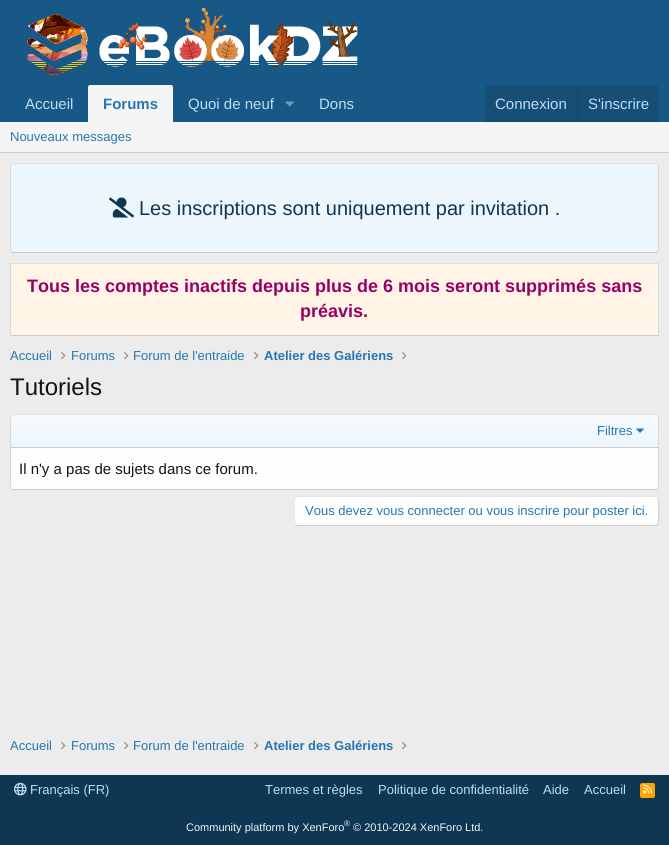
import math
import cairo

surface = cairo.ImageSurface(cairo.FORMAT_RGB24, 669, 845)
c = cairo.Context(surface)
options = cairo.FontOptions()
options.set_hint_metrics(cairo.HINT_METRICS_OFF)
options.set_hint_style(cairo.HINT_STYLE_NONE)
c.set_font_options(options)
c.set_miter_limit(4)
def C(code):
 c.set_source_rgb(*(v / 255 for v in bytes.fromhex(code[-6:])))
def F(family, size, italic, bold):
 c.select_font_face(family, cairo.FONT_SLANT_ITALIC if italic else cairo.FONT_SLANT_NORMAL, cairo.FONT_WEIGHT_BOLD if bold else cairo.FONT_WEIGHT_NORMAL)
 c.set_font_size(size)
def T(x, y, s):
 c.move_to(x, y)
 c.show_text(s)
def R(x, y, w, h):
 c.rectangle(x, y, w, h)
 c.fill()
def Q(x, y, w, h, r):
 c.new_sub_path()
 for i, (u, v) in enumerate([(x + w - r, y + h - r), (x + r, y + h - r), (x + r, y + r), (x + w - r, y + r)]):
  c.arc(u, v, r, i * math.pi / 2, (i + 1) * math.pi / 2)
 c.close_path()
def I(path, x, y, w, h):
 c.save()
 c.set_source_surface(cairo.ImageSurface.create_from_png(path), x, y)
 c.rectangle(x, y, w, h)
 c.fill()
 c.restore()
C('ececec')
c.paint()
C('185886')
R(0,0,669,122)
I('1.png',27,7,331,68)
F('Liberation Sans',15,0,0)
C('bcdef5')
T(25,109,'Accueil')
C('f5f5f5')
c.new_path()
c.move_to(90,85)
c.line_to(171,85)
c.curve_to(172,85,173,86,173,87)
c.line_to(173,122)
c.line_to(88,122)
c.line_to(88,87)
c.curve_to(88,86,89,85,90,85)
c.close_path()
c.fill()
F('Liberation Sans',15,0,1)
C('2577b1')
T(103,109,'Forums')
F('Liberation Sans',15,0,0)
C('bcdef5')
T(188,109,'Quoi de neuf')
I('2.png',285,101,9,6)
T(319,109,'Dons')
C('174e75')
c.new_path()
c.move_to(489,85)
c.line_to(655,85)
c.curve_to(657,85,659,87,659,89)
c.line_to(659,122)
c.line_to(485,122)
c.line_to(485,89)
c.curve_to(485,87,487,85,489,85)
c.close_path()
c.fill()
C('bcdef5')
T(495,109,'Connexion')
C('174566')
R(577,85,1,37)
C('bcdef5')
T(588,109,'S\'inscrire')
C('f5f5f5')
R(0,122,669,30)
C('cbcbcb')
R(0,152,669,1)
F('Liberation Sans',13,0,0)
C('2577b1')
T(10,141,'Nouveaux messages')
C('edf6fd')
Q(10,163,649,90,4)
c.fill()
c.new_path()
c.move_to(11.5,164.5)
c.curve_to(12,164,13,163.5,14,163.5)
c.line_to(655,163.5)
c.curve_to(656,163.5,657,164,657.5,164.5)
C('dfdfdf')
c.set_line_width(1)
c.stroke()
c.new_path()
c.move_to(657.5,164.5)
c.line_to(658.5,166.5)
c.line_to(658.5,249.5)
c.line_to(657.5,251.5)
C('d8d8d8')
c.stroke()
c.new_path()
c.move_to(657.5,251.5)
c.curve_to(657,252,656,252.5,655,252.5)
c.line_to(14,252.5)
c.curve_to(13,252.5,12,252,11.5,251.5)
C('cbcbcb')
c.stroke()
c.new_path()
c.move_to(11.5,251.5)
c.line_to(10.5,249.5)
c.line_to(10.5,166.5)
c.line_to(11.5,164.5)
C('d8d8d8')
c.stroke()
I('3.png',109,197,25,21)
F('Liberation Sans',20,0,0)
C('0f3652')
T(139,215,'Les inscriptions sont uniquement par invitation .')
C('dfdfdf')
R(10,263,649,1)
C('d8d8d8')
R(658,263,1,73)
C('cbcbcb')
R(10,335,649,1)
C('d8d8d8')
R(10,263,1,73)
C('fff4e5')
R(11,264,647,71)
F('Liberation Sans',18,0,1)
C('990066')
T(27,292,'Tous les comptes inactifs depuis plus de 6 mois seront supprimés sans')
T(300,317,'préavis.')
F('Liberation Sans',13,0,0)
C('2577b1')
T(10,360,'Accueil')
I('4.png',61,352,5,8)
T(71,360,'Forums')
I('4.png',124,352,5,8)
T(133,360,'Forum de l\'entraide')
I('4.png',254,352,5,8)
F('Liberation Sans',13,0,1)
T(264,360,'Atelier des Galériens')
I('4.png',402,352,5,8)
F('Liberation Sans',24,0,0)
C('141414')
T(10,395,'Tutoriels')
C('fefefe')
Q(10,414,649,76,4)
c.fill()
c.new_path()
c.move_to(11.5,415.5)
c.curve_to(12,415,13,414.5,14,414.5)
c.line_to(655,414.5)
c.curve_to(656,414.5,657,415,657.5,415.5)
C('dfdfdf')
c.stroke()
c.new_path()
c.move_to(657.5,415.5)
c.line_to(658.5,417.5)
c.line_to(658.5,486.5)
c.line_to(657.5,488.5)
C('d8d8d8')
c.stroke()
c.new_path()
c.move_to(657.5,488.5)
c.curve_to(657,489,656,489.5,655,489.5)
c.line_to(14,489.5)
c.curve_to(13,489.5,12,489,11.5,488.5)
C('cbcbcb')
c.stroke()
c.new_path()
c.move_to(11.5,488.5)
c.line_to(10.5,486.5)
c.line_to(10.5,417.5)
c.line_to(11.5,415.5)
C('d8d8d8')
c.stroke()
gradient = cairo.LinearGradient(335,447,335,415)
gradient.add_color_stop_rgba(0,0.929,0.965,0.992,1)
gradient.add_color_stop_rgba(1,0.965,0.98,0.996,1)
c.set_source(gradient)
c.new_path()
c.move_to(14,415)
c.line_to(655,415)
c.curve_to(656.5,415,658,416.5,658,418)
c.line_to(658,447)
c.line_to(11,447)
c.line_to(11,418)
c.curve_to(11,416.5,12.5,415,14,415)
c.close_path()
c.fill()
C('cbcbcb')
R(11,447,647,1)
F('Liberation Sans',13,0,0)
C('2577b1')
T(597,435,'Filtres')
I('5.png',636,428,8,5)
F('Liberation Sans',15,0,0)
C('141414')
T(19,474,'Il n\'y a pas de sujets dans ce forum.')
C('fefefe')
Q(294,496,365,30,4)
c.fill()
c.new_path()
c.move_to(657.5,497.5)
c.curve_to(659.5,499.5,659,522,658,524)
c.curve_to(657.5,525,656,525.5,655,525.5)
c.line_to(297.5,525.5)
c.line_to(295.5,524.5)
C('cbcbcb')
c.stroke()
c.new_path()
c.move_to(295.5,524.5)
c.curve_to(293.5,522.5,294,500,295,498)
c.curve_to(295.5,497,297,496.5,298,496.5)
c.line_to(655.5,496.5)
c.line_to(657.5,497.5)
C('e5e5e5')
c.stroke()
F('Liberation Sans',13,0,0)
C('2577b1')
T(305,515,'Vous devez vous connecter ou vous inscrire pour poster ici.')
T(10,750,'Accueil')
I('4.png',61,742,5,8)
T(71,750,'Forums')
I('4.png',124,742,5,8)
T(133,750,'Forum de l\'entraide')
I('4.png',254,742,5,8)
F('Liberation Sans',13,0,1)
T(264,750,'Atelier des Galériens')
I('4.png',402,742,5,8)
C('0f3652')
R(0,775,669,70)
I('6.png',14,782,13,14)
F('Liberation Sans',13,0,0)
C('bcdef5')
T(30,794,'Français (FR)')
T(265,794,'Termes et règles')
T(378,794,'Politique de confidentialité')
T(543,794,'Aide')
T(584,794,'Accueil')
C('ffa500')
Q(640,783,15,15,2)
c.fill()
I('7.png',643,784,10,10)
F('Liberation Sans',11,0,0)
C('edf6fd')
T(186,831,'Community platform by XenForo')
F('Liberation Sans',8,0,0)
T(344,826,'®')
F('Liberation Sans',11,0,0)
T(353,831,'© 2010-2024 XenForo Ltd.')
surface.write_to_png('o.png')
